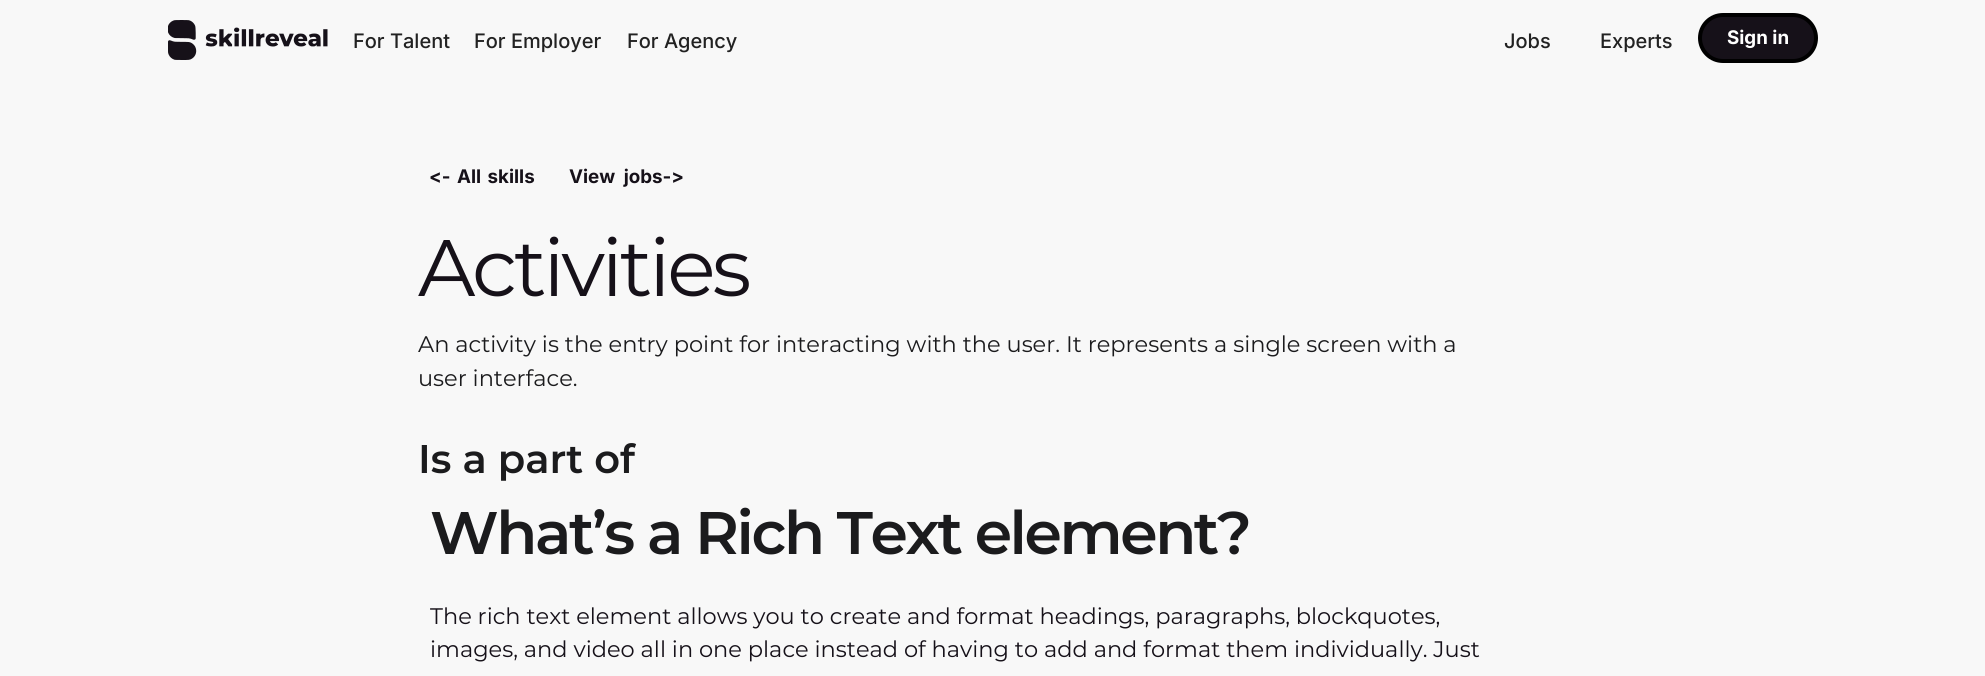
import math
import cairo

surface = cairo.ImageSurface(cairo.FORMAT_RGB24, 1985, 676)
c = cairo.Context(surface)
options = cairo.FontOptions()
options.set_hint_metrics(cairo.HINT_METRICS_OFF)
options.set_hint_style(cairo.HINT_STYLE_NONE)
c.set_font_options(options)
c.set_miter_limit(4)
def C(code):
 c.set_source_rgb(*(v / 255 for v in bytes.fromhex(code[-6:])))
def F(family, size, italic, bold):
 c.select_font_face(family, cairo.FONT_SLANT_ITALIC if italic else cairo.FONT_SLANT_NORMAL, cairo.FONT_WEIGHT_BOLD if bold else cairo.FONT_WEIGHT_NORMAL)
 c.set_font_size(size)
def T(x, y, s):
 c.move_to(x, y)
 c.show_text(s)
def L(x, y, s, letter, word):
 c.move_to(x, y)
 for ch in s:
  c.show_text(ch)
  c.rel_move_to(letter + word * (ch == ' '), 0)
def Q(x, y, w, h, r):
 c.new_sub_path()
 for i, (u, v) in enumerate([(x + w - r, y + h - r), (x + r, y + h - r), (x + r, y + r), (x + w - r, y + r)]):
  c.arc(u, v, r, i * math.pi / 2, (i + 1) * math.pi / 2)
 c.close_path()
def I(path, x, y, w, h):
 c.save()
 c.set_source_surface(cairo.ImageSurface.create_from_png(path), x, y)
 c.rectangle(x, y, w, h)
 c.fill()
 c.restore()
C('f8f8f8')
c.paint()
I('1.png',168,20,160,40)
F('Inter Medium',20,0,0)
C('222222')
T(353,48,'For Talent')
T(474,48,'For Employer')
T(627,48,'For Agency')
T(1504,48,'Jobs')
T(1600,48,'Experts')
C('161119')
Q(1700,15,116,46,23)
c.fill_preserve()
C('000000')
c.set_line_width(4)
c.stroke()
F('Inter',18.75,0,1)
C('ffffff')
T(1727,44,'Sign in')
C('161119')
L(429,183,'<- All skills',0,2)
L(569,183,'View jobs->',0,4)
F('Montserrat',80,0,0)
L(418,296,'Activities',-3.25,0)
F('Montserrat',22.5,0,0)
C('1b1b1d')
T(418,352,'An activity is the entry point for interacting with the user. It represents a single screen with a')
T(418,386,'user interface.')
F('Montserrat SemiBold',40,0,0)
T(418,473,'Is a part of')
F('Montserrat SemiBold',60,0,0)
L(430,554,'What’s a Rich Text element?',-2.4,0)
F('Montserrat',22.5,0,0)
C('161119')
T(430,624,'The rich text element allows you to create and format headings, paragraphs, blockquotes,')
T(430,657,'images, and video all in one place instead of having to add and format them individually. Just')
surface.write_to_png('o.png')
